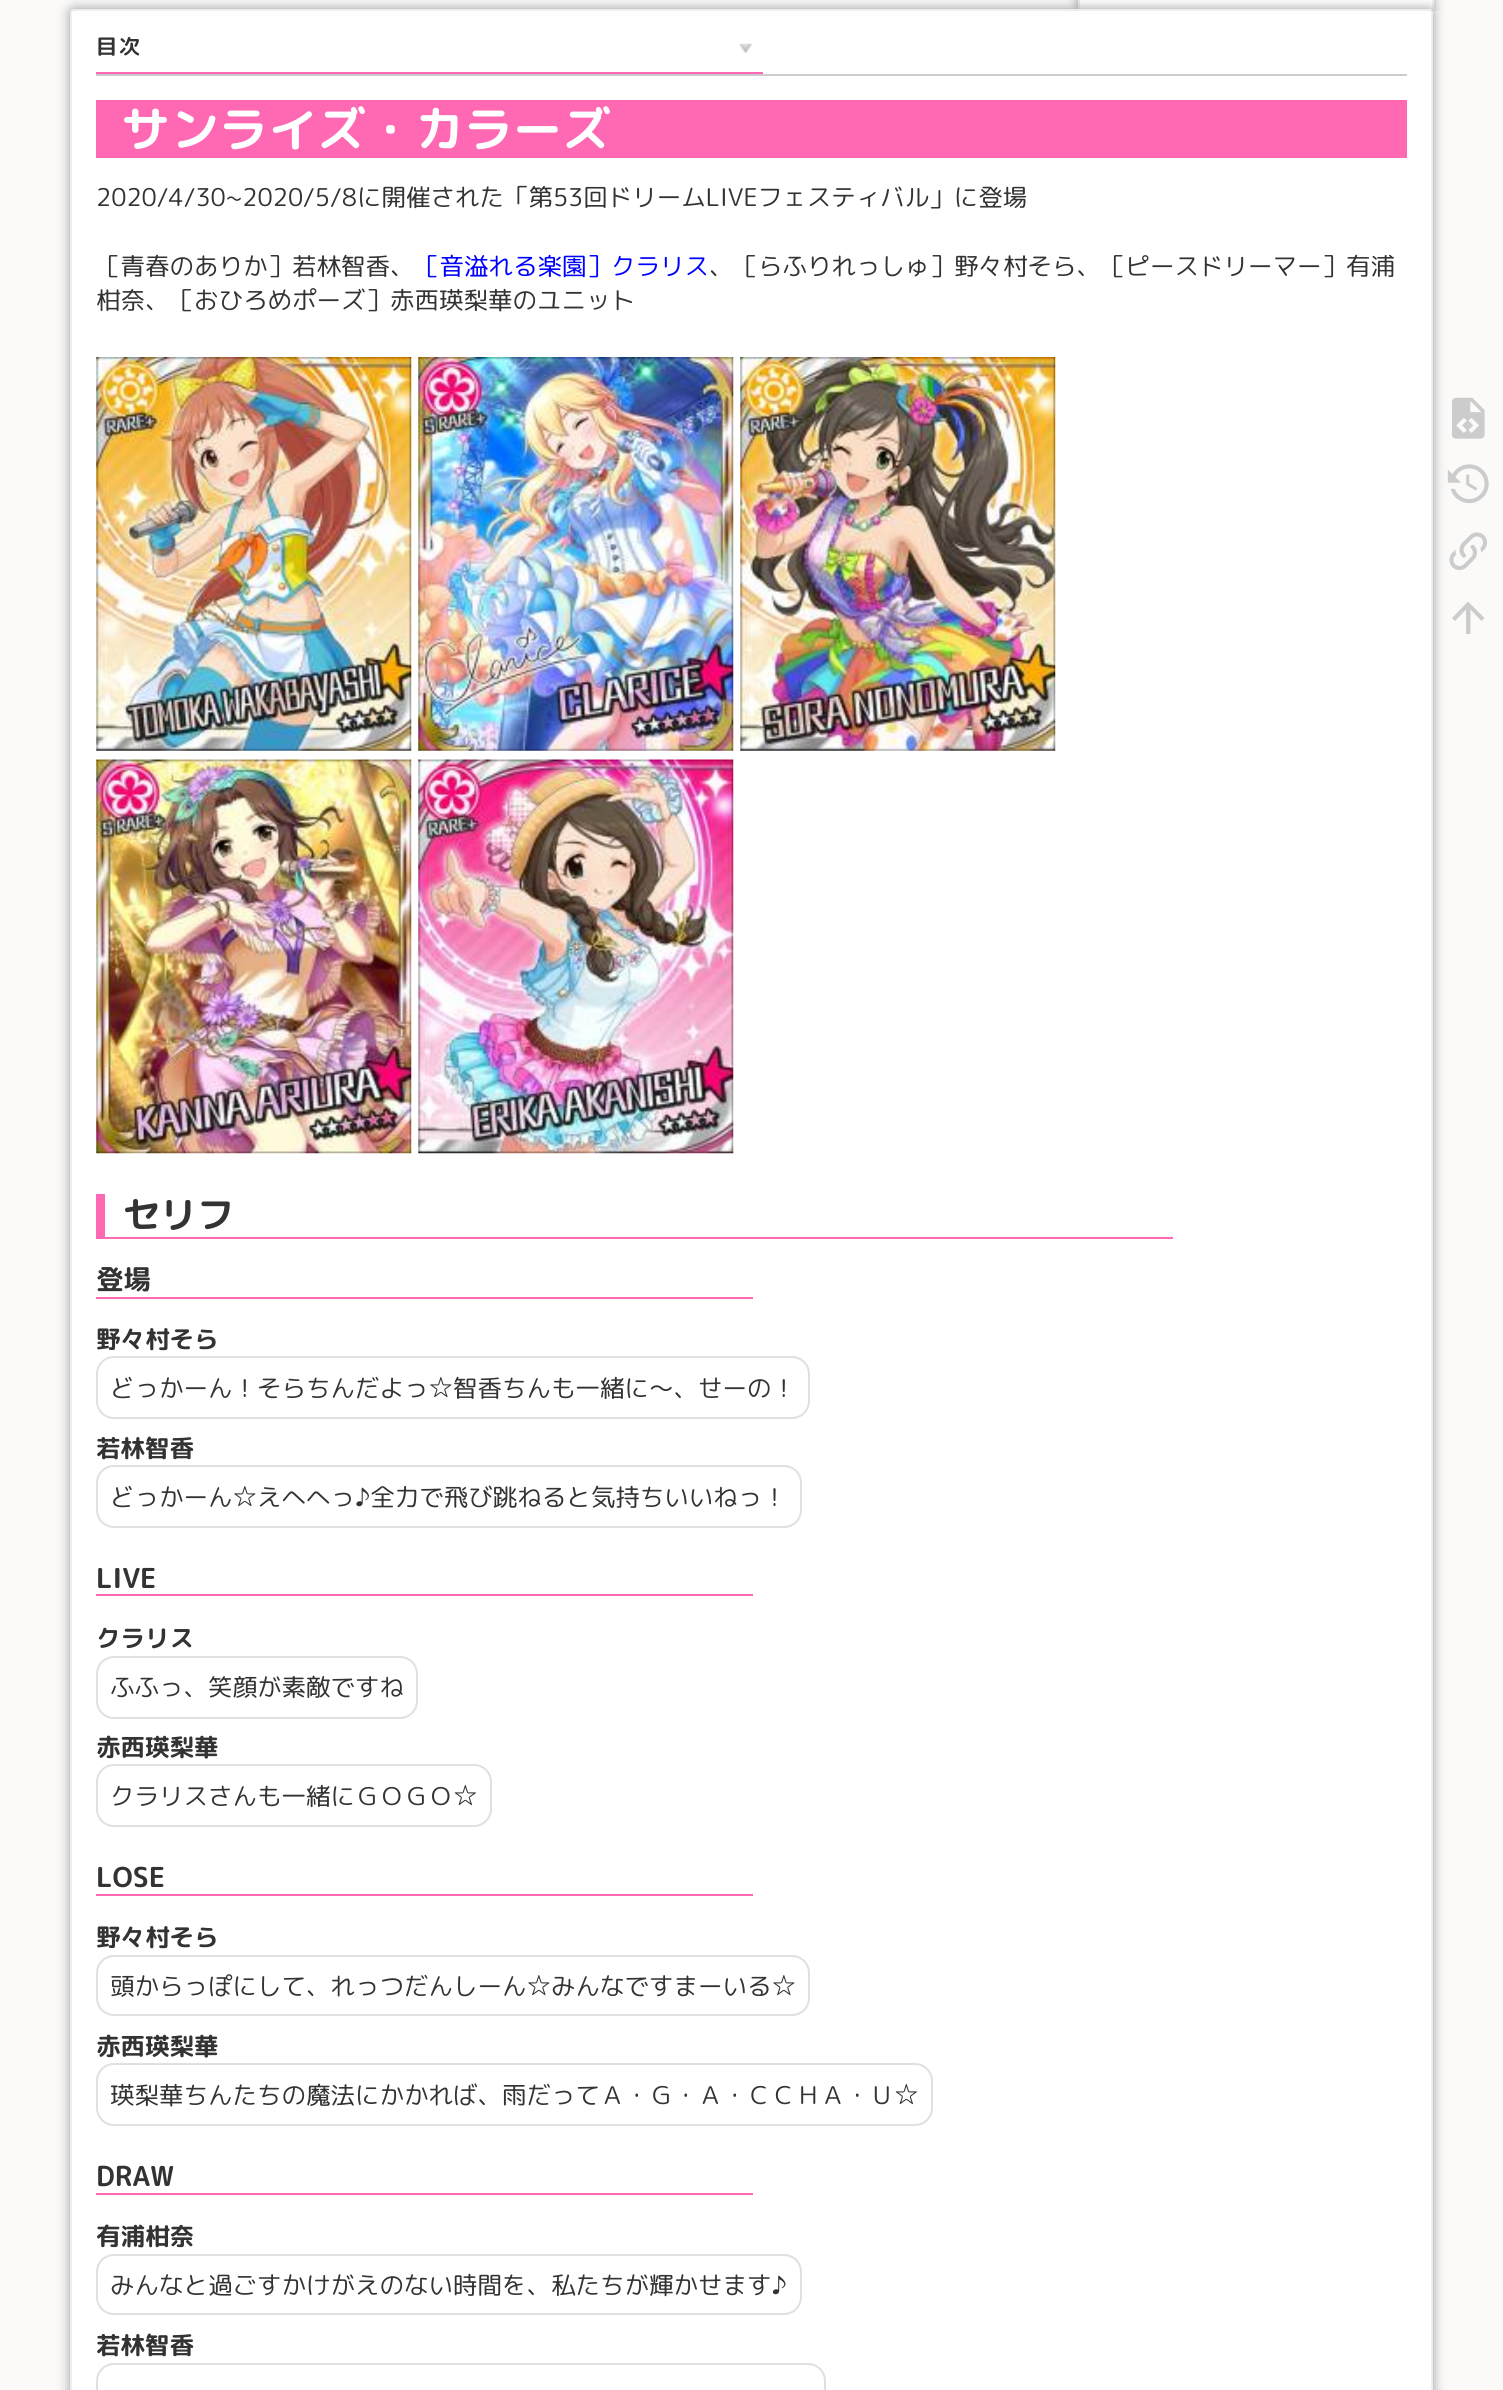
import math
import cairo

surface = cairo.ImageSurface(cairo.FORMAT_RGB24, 1503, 2390)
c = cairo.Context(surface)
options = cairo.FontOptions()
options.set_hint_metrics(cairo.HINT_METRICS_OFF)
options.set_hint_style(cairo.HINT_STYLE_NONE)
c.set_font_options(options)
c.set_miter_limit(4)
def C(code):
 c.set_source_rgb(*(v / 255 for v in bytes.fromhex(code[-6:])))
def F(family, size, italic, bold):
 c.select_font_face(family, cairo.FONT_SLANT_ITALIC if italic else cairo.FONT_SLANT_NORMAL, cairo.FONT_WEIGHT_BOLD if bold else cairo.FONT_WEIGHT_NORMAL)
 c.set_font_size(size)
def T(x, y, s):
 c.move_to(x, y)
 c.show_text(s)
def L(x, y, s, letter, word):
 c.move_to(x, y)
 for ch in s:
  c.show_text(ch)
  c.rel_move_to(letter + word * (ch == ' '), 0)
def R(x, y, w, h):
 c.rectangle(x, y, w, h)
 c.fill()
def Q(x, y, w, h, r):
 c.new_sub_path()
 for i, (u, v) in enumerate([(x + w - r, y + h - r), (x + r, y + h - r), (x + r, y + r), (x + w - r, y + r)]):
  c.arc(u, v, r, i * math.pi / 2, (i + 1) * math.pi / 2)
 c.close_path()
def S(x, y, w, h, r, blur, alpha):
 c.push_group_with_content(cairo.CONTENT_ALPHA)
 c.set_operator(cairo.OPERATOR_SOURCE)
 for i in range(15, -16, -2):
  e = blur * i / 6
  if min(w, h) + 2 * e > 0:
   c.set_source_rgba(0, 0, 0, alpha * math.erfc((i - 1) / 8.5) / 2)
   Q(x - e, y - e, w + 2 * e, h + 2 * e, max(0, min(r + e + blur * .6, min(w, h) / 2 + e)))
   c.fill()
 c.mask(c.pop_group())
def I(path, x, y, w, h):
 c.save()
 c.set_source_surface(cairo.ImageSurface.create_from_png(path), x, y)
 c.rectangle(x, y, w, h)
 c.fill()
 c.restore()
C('fbfaf9')
c.paint()
c.save()
c.rectangle(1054,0,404,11)
c.clip()
C('999999')
S(1078,-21,355,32,4,5.5,1)
c.restore()
C('ffffff')
R(1080,0,352,11)
C('eeeeee')
R(1432,0,2,11)
R(1078,0,2,11)
C('999999')
S(70,9,1363,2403,4,6,1)
C('ffffff')
Q(71,10,1361,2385,3)
c.fill_preserve()
C('eeeeee')
c.stroke()
C('cccccc')
R(96,74,1311,2)
C('ff69b4')
R(96,72,667,2)
F('Rounded Mplus 1c',21,0,1)
C('333333')
L(96,54,'目次',2,0)
I('1.png',739,43,14,10)
C('ff69b4')
R(96,100,1311,58)
F('Rounded Mplus 1c',49,0,1)
C('ffffff')
T(121,147,'サンライズ・カラーズ')
F('Rounded Mplus 1c',24.5,0,0)
C('333333')
T(96,206,'2020/4/30~2020/5/8に開催された「第53回ドリームLIVEフェスティバル」に登場')
T(96,275,'［青春のありか］若林智香、')
C('0000ff')
T(415,275,'［音溢れる楽園］クラリス')
C('333333')
T(709,275,'、［らふりれっしゅ］野々村そら、［ピースドリーマー］有浦')
T(96,309,'柑奈、［おひろめポーズ］赤西瑛梨華のユニット')
I('2.png',96,357,316,394)
I('3.png',418,357,316,394)
I('4.png',740,357,316,394)
I('5.png',96,759,316,395)
I('6.png',418,759,316,395)
C('ff69b4')
R(105,1237,1068,2)
R(96,1194,9,45)
F('Rounded Mplus 1c',37,0,1)
C('333333')
T(123,1228,'セリフ')
C('ff69b4')
R(96,1297,657,2)
F('Rounded Mplus 1c',27.5,0,1)
C('333333')
T(96,1289,'登場')
F('Rounded Mplus 1c',24.5,0,1)
T(96,1348,'野々村そら')
Q(97,1357,712,61,17)
C('e0e0e0')
c.stroke()
F('Rounded Mplus 1c',24.5,0,0)
C('333333')
T(110,1397,'どっかーん！そらちんだよっ☆智香ちんも一緒に～、せーの！')
F('Rounded Mplus 1c',24.5,0,1)
T(96,1457,'若林智香')
Q(97,1466,704,61,17)
C('e0e0e0')
c.stroke()
F('Rounded Mplus 1c',24.5,0,0)
C('333333')
T(110,1506,'どっかーん☆えへへっ♪全力で飛び跳ねると気持ちいいねっ！')
C('ff69b4')
R(96,1594,657,2)
F('Rounded Mplus 1c',27.5,0,1)
C('333333')
T(96,1588,'LIVE')
F('Rounded Mplus 1c',24.5,0,1)
T(96,1647,'クラリス')
Q(97,1657,320,61,17)
C('e0e0e0')
c.stroke()
F('Rounded Mplus 1c',24.5,0,0)
C('333333')
T(110,1696,'ふふっ、笑顔が素敵ですね')
F('Rounded Mplus 1c',24.5,0,1)
T(96,1756,'赤西瑛梨華')
Q(97,1765,394,61,17)
C('e0e0e0')
c.stroke()
F('Rounded Mplus 1c',24.5,0,0)
C('333333')
T(110,1805,'クラリスさんも一緒にＧＯＧＯ☆')
C('ff69b4')
R(96,1894,657,2)
F('Rounded Mplus 1c',27.5,0,1)
C('333333')
T(96,1887,'LOSE')
F('Rounded Mplus 1c',24.5,0,1)
T(96,1946,'野々村そら')
Q(97,1956,712,59,17)
C('e0e0e0')
c.stroke()
F('Rounded Mplus 1c',24.5,0,0)
C('333333')
T(110,1995,'頭からっぽにして、れっつだんしーん☆みんなですまーいる☆')
F('Rounded Mplus 1c',24.5,0,1)
T(96,2055,'赤西瑛梨華')
Q(97,2064,835,61,17)
C('e0e0e0')
c.stroke()
F('Rounded Mplus 1c',24.5,0,0)
C('333333')
T(110,2104,'瑛梨華ちんたちの魔法にかかれば、雨だってＡ・Ｇ・Ａ・ＣＣＨＡ・Ｕ☆')
C('ff69b4')
R(96,2193,657,2)
F('Rounded Mplus 1c',27.5,0,1)
C('333333')
T(96,2186,'DRAW')
F('Rounded Mplus 1c',24.5,0,1)
T(96,2245,'有浦柑奈')
Q(97,2255,704,59,17)
C('e0e0e0')
c.stroke()
F('Rounded Mplus 1c',24.5,0,0)
C('333333')
T(110,2294,'みんなと過ごすかけがえのない時間を、私たちが輝かせます♪')
F('Rounded Mplus 1c',24.5,0,1)
T(96,2354,'若林智香')
Q(97,2364,728,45,17)
C('e0e0e0')
c.stroke()
I('7.png',1452,397,33,42)
I('8.png',1447,464,42,40)
I('9.png',1449,532,39,39)
C('cccccc')
c.new_path()
c.move_to(1470.5,634)
c.line_to(1466,634)
c.line_to(1466,609.5)
c.line_to(1455,621)
c.line_to(1452,618)
c.line_to(1468,601.5)
c.line_to(1484.5,618)
c.line_to(1481.5,621)
c.line_to(1470.5,609.5)
c.close_path()
c.fill()
surface.write_to_png('o.png')
